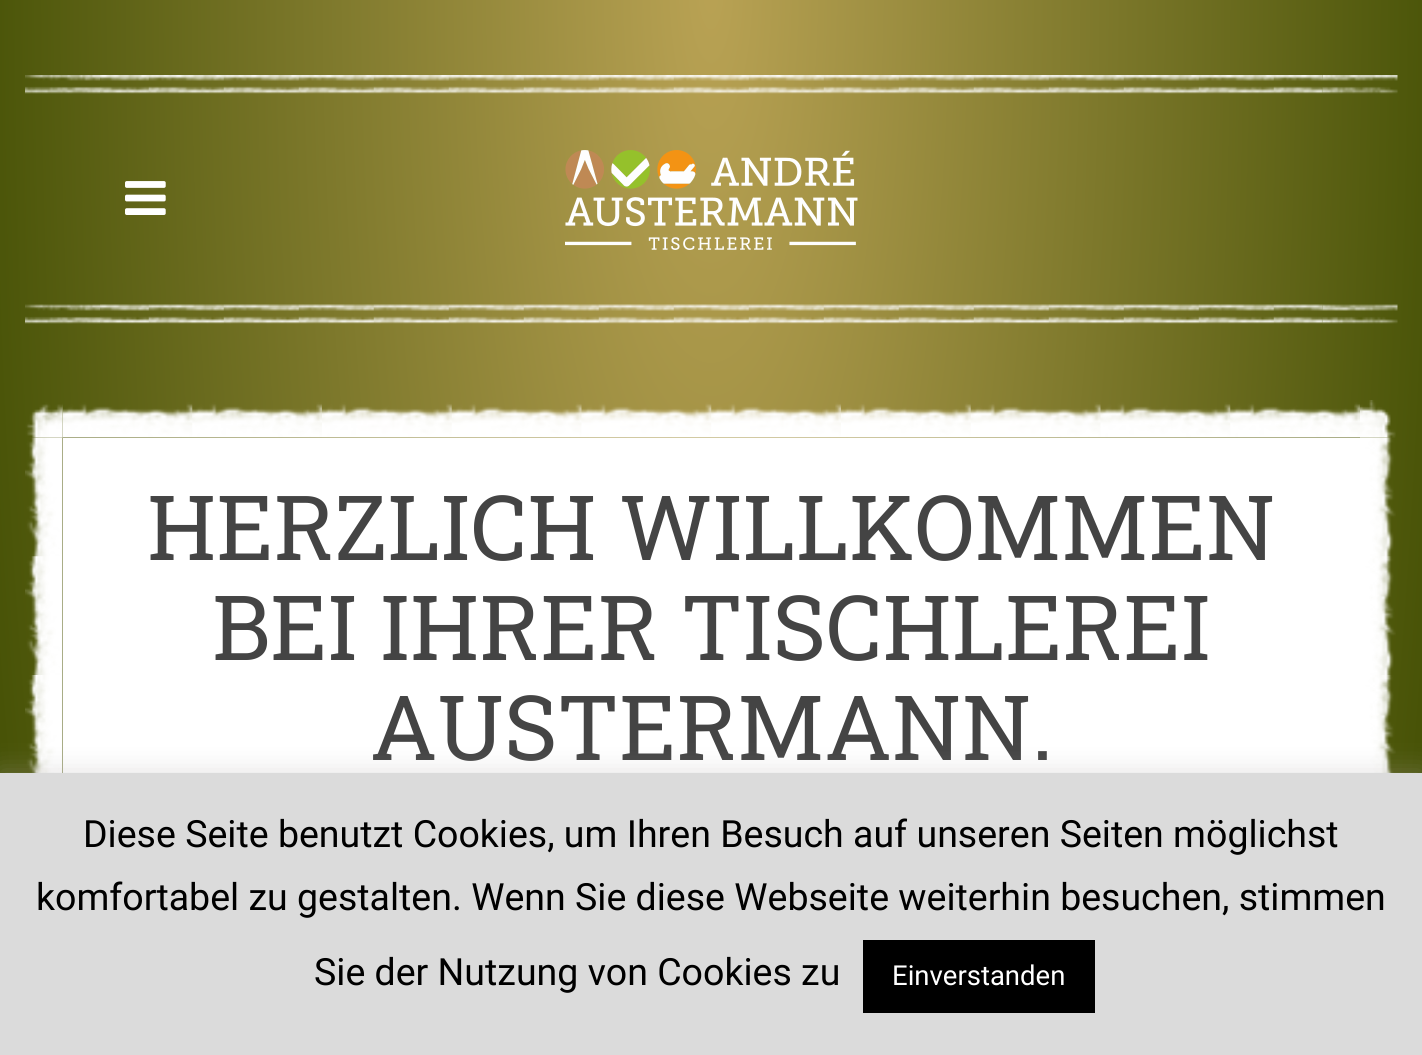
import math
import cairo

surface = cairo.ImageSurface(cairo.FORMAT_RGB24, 1422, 1055)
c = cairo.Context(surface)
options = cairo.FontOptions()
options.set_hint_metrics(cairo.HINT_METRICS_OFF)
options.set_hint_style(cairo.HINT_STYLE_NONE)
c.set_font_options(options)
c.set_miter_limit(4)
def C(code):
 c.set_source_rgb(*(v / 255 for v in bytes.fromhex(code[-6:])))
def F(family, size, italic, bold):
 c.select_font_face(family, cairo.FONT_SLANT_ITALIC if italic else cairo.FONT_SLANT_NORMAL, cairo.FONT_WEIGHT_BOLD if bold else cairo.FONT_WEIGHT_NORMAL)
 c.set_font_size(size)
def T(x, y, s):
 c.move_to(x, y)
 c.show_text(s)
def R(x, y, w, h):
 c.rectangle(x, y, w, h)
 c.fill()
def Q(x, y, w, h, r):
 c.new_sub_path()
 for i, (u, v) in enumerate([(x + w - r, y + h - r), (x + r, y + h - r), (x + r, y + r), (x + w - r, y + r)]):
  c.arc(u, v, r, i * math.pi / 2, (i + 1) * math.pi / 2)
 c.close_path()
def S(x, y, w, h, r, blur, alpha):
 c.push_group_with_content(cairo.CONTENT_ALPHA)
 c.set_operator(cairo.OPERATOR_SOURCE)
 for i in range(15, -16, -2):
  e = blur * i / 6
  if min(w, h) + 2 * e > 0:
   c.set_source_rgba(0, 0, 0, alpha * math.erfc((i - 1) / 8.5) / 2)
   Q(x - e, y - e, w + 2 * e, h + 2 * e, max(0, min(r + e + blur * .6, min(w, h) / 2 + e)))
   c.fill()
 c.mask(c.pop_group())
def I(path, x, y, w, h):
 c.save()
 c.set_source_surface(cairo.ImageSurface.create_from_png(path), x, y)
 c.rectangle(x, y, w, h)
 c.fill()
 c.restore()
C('ffffff')
c.paint()
gradient = cairo.RadialGradient(0,0,0,0,0,1)
gradient.set_matrix(cairo.Matrix(1 / 2048, 0, 0, 1 / 6955, -1 * 711 / 2048, -1 * 0 / 6955))
gradient.add_color_stop_rgba(0,0.725,0.635,0.329,1)
gradient.add_color_stop_rgba(.37,0.271,0.318,0.02,1)
gradient.add_color_stop_rgba(1,0.353,0.169,0.027,1)
c.set_source(gradient)
R(0,0,1422,773)
I('1.png',25,75,1373,249)
I('2.png',125,181,41,34)
I('3.png',565,150,293,100)
C('ffffff')
R(63,438,1297,335)
I('4.png',25,400,1371,373)
F('Roboto Slab',90,0,0)
C('444444')
T(147,560,'HERZLICH WILLKOMMEN')
T(212,660,'BEI IHRER TISCHLEREI')
T(370,760,'AUSTERMANN.')
C('acabab')
S(0,770,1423,283,0,12.5,.3)
C('dbdbdb')
R(0,773,1422,282)
F('Roboto',37.5,0,0)
C('000000')
T(83,847,'Diese Seite benutzt Cookies, um Ihren Besuch auf unseren Seiten möglichst')
T(36,910,'komfortabel zu gestalten. Wenn Sie diese Webseite weiterhin besuchen, stimmen')
T(314,985,'Sie der Nutzung von Cookies zu')
R(863,940,232,73)
F('Roboto',27.5,0,0)
C('ffffff')
T(892,985,'Einverstanden')
surface.write_to_png('o.png')
